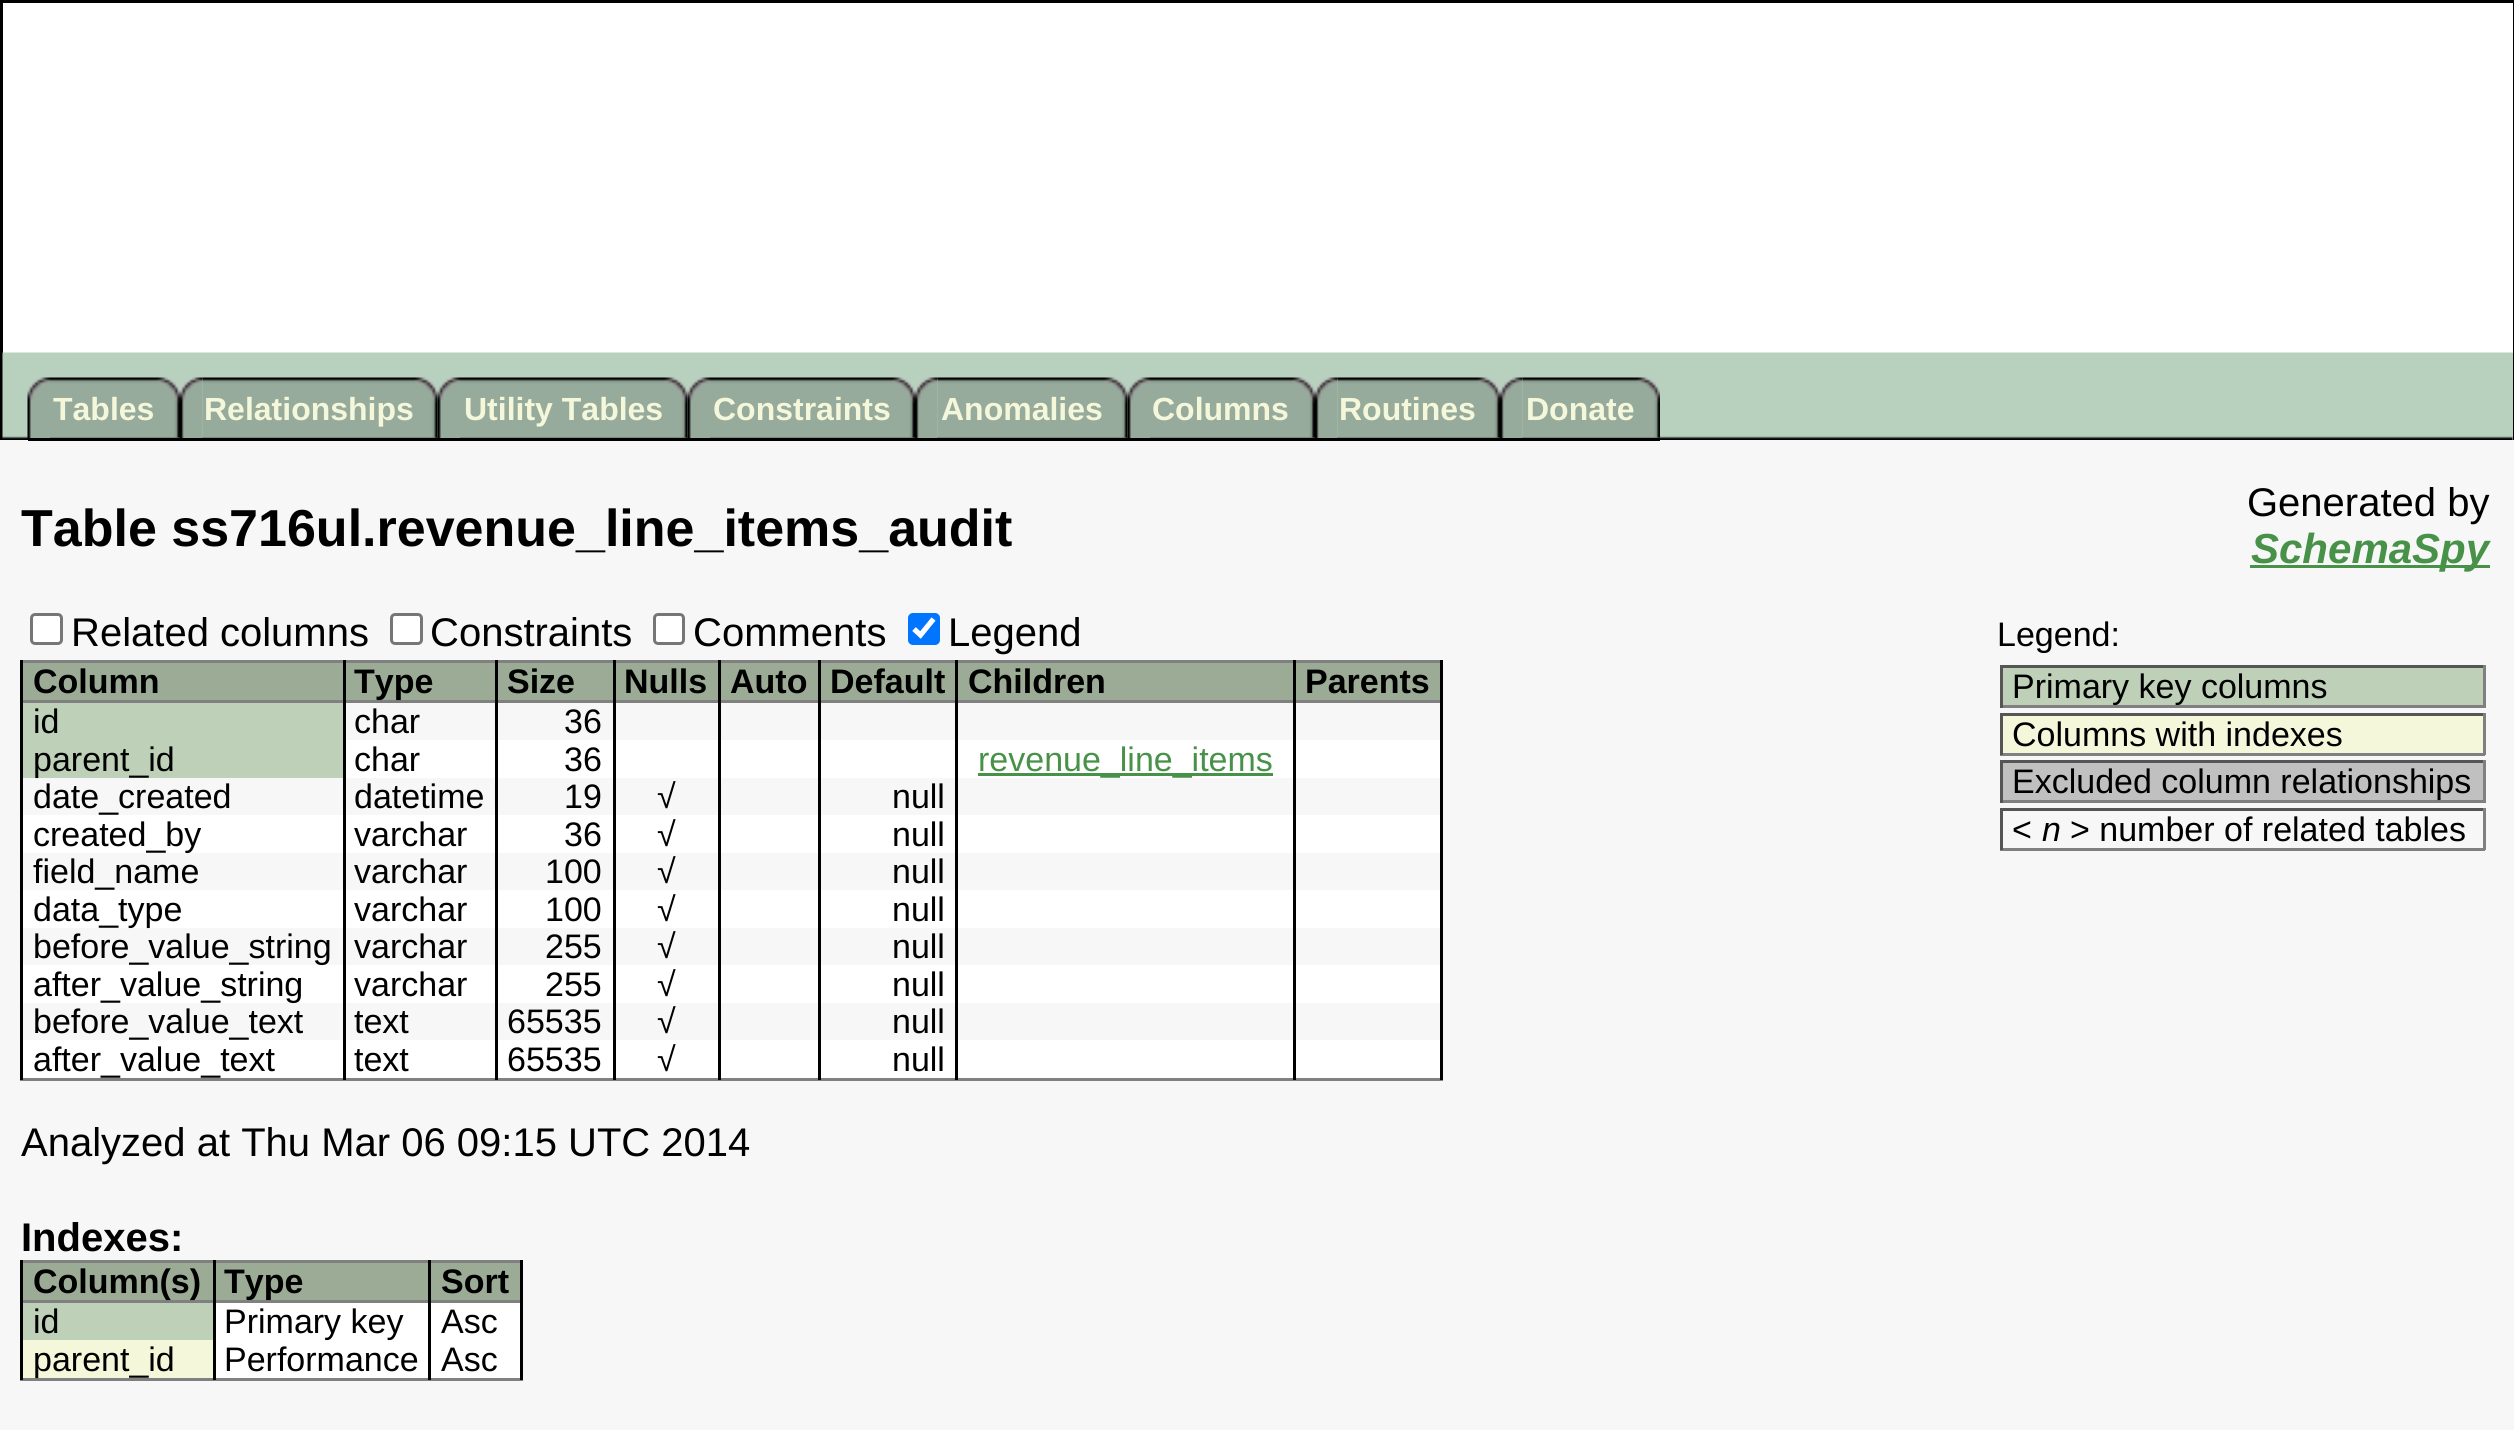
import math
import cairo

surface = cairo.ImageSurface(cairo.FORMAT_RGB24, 2514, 1430)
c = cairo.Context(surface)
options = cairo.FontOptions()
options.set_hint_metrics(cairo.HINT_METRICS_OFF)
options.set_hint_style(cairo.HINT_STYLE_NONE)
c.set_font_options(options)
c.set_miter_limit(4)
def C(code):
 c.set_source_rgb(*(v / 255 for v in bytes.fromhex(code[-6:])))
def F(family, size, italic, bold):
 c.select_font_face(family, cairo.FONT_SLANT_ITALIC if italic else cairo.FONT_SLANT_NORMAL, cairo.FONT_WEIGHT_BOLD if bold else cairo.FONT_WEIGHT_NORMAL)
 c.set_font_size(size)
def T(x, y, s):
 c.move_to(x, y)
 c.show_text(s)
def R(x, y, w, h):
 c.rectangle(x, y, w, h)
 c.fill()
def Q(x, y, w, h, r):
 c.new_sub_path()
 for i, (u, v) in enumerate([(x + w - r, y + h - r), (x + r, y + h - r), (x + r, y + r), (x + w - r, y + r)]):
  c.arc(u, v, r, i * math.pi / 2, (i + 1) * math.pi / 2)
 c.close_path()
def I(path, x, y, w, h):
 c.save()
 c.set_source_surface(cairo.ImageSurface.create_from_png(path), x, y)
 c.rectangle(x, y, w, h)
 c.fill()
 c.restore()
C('ffffff')
c.paint()
C('000000')
R(0,0,2514,3)
R(2513,0,1,440)
R(0,0,3,440)
C('bed1b8')
R(2512,353,1,87)
I('1.png',2,352,2511,88)
I('2.png',27,377,23,63)
C('f7f7f7')
R(0,440,2514,990)
C('000000')
R(28,438,410,3)
I('3.png',50,377,130,61)
F('Liberation Sans',32,0,1)
C('f4f7da')
T(53,420,'Tables')
I('4.png',180,377,23,61)
I('5.png',202,377,236,61)
T(204,420,'Relationships')
I('6.png',437,377,23,63)
C('000000')
R(438,438,250,3)
I('7.png',460,377,228,61)
C('f4f7da')
T(464,420,'Utility Tables')
I('6.png',687,377,23,63)
C('000000')
R(688,438,440,3)
I('8.png',710,377,205,61)
C('f4f7da')
T(713,420,'Constraints')
I('4.png',915,377,23,61)
I('9.png',937,377,191,61)
T(941,420,'Anomalies')
I('10.png',1127,377,23,63)
C('000000')
R(1128,438,532,3)
I('11.png',1150,377,165,61)
C('f4f7da')
T(1152,420,'Columns')
I('4.png',1315,377,23,61)
I('12.png',1337,377,163,61)
T(1339,420,'Routines')
I('4.png',1500,377,23,61)
I('13.png',1522,377,138,61)
T(1526,420,'Donate')
F('Liberation Sans',52,0,1)
C('000000')
T(21,546,'Table ss716ul.revenue_line_items_audit')
F('Liberation Sans',40,0,0)
T(2247,516,'Generated by')
C('489148')
R(2250,565,240,3)
F('Liberation Sans',42,1,1)
T(2251,563,'SchemaSpy')
C('ffffff')
Q(31.5,614.5,30,29,3.5)
c.fill_preserve()
C('767676')
c.set_line_width(3)
c.stroke()
F('Liberation Sans',40,0,0)
C('000000')
T(71,646,'Related columns')
C('ffffff')
Q(391.5,614.5,30,29,3.5)
c.fill_preserve()
C('767676')
c.stroke()
C('000000')
T(430,646,'Constraints')
C('ffffff')
Q(654.5,614.5,29,29,3.5)
c.fill_preserve()
C('767676')
c.stroke()
C('000000')
T(693,646,'Comments')
C('0075ff')
Q(908,613,32,32,5)
c.fill()
c.new_path()
c.move_to(914,629)
c.line_to(920.5,635)
c.line_to(933.5,619)
C('ffffff')
c.set_line_width(5.2)
c.stroke()
C('000000')
T(948,646,'Legend')
F('Liberation Sans',34,0,0)
T(1997,646,'Legend:')
C('bed1b8')
R(2003,668,480,37)
C('555555')
R(2000,665,485,3)
C('808080')
R(2483,665,3,43)
R(2000,705,485,3)
C('555555')
R(2000,665,3,43)
C('000000')
T(2012,698,'Primary key columns')
C('f4f7da')
R(2003,716,480,37)
C('555555')
R(2000,713,485,3)
C('808080')
R(2483,713,3,42)
R(2000,753,485,3)
C('555555')
R(2000,713,3,42)
C('000000')
T(2012,746,'Columns with indexes')
C('c0c0c0')
R(2003,763,480,37)
C('555555')
R(2000,760,485,3)
C('808080')
R(2483,760,3,43)
R(2000,800,485,3)
C('555555')
R(2000,760,3,43)
C('000000')
T(2012,793,'Excluded column relationships')
C('555555')
R(2000,808,485,3)
C('808080')
R(2483,808,3,42)
R(2000,848,485,3)
C('555555')
R(2000,808,3,42)
C('000000')
T(2012,841,'<')
F('Liberation Sans',34,1,0)
T(2042,841,'n')
F('Liberation Sans',34,0,0)
T(2070,841,'> number of related tables')
C('808080')
R(20,660,1423,3)
R(20,700,1423,3)
R(20,1078,1423,3)
C('000000')
R(20,660,3,420)
R(343,660,3,420)
R(495,660,3,420)
R(613,660,3,420)
R(718,660,3,420)
R(818,660,3,420)
R(955,660,3,420)
R(1440,660,3,420)
R(1293,660,3,420)
C('9bab96')
R(23,663,320,37)
F('Liberation Sans',34,0,1)
C('000000')
T(33,693,'Column')
C('9bab96')
R(346,663,149,37)
C('000000')
T(354,693,'Type')
C('9bab96')
R(498,663,115,37)
C('000000')
T(507,693,'Size')
C('9bab96')
R(616,663,102,37)
C('000000')
T(624,693,'Nulls')
C('9bab96')
R(721,663,97,37)
C('000000')
T(730,693,'Auto')
C('9bab96')
R(821,663,134,37)
C('000000')
T(830,693,'Default')
C('9bab96')
R(958,663,335,37)
C('000000')
T(968,693,'Children')
C('9bab96')
R(1296,663,144,37)
C('000000')
T(1305,693,'Parents')
C('bed1b8')
R(23,703,320,75)
F('Liberation Sans',34,0,0)
C('000000')
T(33,733,'id')
T(354,733,'char')
T(564,733,'36')
T(33,771,'parent_id')
C('ffffff')
R(346,740,149,38)
C('000000')
T(354,771,'char')
C('ffffff')
R(498,740,115,38)
C('000000')
T(564,771,'36')
C('ffffff')
R(616,740,102,38)
R(721,740,97,38)
R(821,740,134,38)
R(958,740,335,38)
C('489148')
R(978,773,295,3)
T(978,771,'revenue_line_items')
C('ffffff')
R(1296,740,144,38)
C('000000')
T(33,808,'date_created')
T(354,808,'datetime')
T(564,808,'19')
T(657,808,'√')
T(892,808,'null')
C('ffffff')
R(23,815,320,38)
C('000000')
T(33,846,'created_by')
C('ffffff')
R(346,815,149,38)
C('000000')
T(354,846,'varchar')
C('ffffff')
R(498,815,115,38)
C('000000')
T(564,846,'36')
C('ffffff')
R(616,815,102,38)
C('000000')
T(657,846,'√')
C('ffffff')
R(721,815,97,38)
R(821,815,134,38)
C('000000')
T(892,846,'null')
C('ffffff')
R(958,815,335,38)
R(1296,815,144,38)
C('000000')
T(33,883,'field_name')
T(354,883,'varchar')
T(545,883,'100')
T(657,883,'√')
T(892,883,'null')
C('ffffff')
R(23,890,320,38)
C('000000')
T(33,921,'data_type')
C('ffffff')
R(346,890,149,38)
C('000000')
T(354,921,'varchar')
C('ffffff')
R(498,890,115,38)
C('000000')
T(545,921,'100')
C('ffffff')
R(616,890,102,38)
C('000000')
T(657,921,'√')
C('ffffff')
R(721,890,97,38)
R(821,890,134,38)
C('000000')
T(892,921,'null')
C('ffffff')
R(958,890,335,38)
R(1296,890,144,38)
R(23,965,320,38)
C('000000')
T(33,958,'before_value_string')
T(354,958,'varchar')
T(545,958,'255')
T(657,958,'√')
T(892,958,'null')
T(33,996,'after_value_string')
C('ffffff')
R(346,965,149,38)
C('000000')
T(354,996,'varchar')
C('ffffff')
R(498,965,115,38)
C('000000')
T(545,996,'255')
C('ffffff')
R(616,965,102,38)
C('000000')
T(657,996,'√')
C('ffffff')
R(721,965,97,38)
R(821,965,134,38)
C('000000')
T(892,996,'null')
C('ffffff')
R(958,965,335,38)
R(1296,965,144,38)
C('000000')
T(33,1033,'before_value_text')
T(354,1033,'text')
T(507,1033,'65535')
T(657,1033,'√')
T(892,1033,'null')
C('ffffff')
R(23,1040,320,38)
C('000000')
T(33,1071,'after_value_text')
C('ffffff')
R(346,1040,149,38)
C('000000')
T(354,1071,'text')
C('ffffff')
R(498,1040,115,38)
C('000000')
T(507,1071,'65535')
C('ffffff')
R(616,1040,102,38)
C('000000')
T(657,1071,'√')
C('ffffff')
R(721,1040,97,38)
R(821,1040,134,38)
C('000000')
T(892,1071,'null')
C('ffffff')
R(958,1040,335,38)
R(1296,1040,144,38)
F('Liberation Sans',40,0,0)
C('000000')
T(21,1156,'Analyzed at Thu Mar 06 09:15 UTC 2014')
F('Liberation Sans',40,0,1)
T(21,1251,'Indexes:')
C('808080')
R(20,1260,503,3)
R(20,1300,503,3)
R(20,1378,503,3)
C('000000')
R(20,1260,3,120)
R(213,1260,3,120)
R(520,1260,3,120)
R(428,1260,3,120)
C('9bab96')
R(23,1263,190,37)
F('Liberation Sans',34,0,1)
C('000000')
T(33,1293,'Column(s)')
C('9bab96')
R(216,1263,212,37)
C('000000')
T(224,1293,'Type')
C('9bab96')
R(431,1263,89,37)
C('000000')
T(441,1293,'Sort')
C('bed1b8')
R(23,1303,190,37)
F('Liberation Sans',34,0,0)
C('000000')
T(33,1333,'id')
C('ffffff')
R(216,1303,212,75)
C('000000')
T(224,1333,'Primary key')
C('ffffff')
R(431,1303,89,75)
C('000000')
T(441,1333,'Asc')
C('f4f7da')
R(23,1340,190,38)
C('000000')
T(33,1371,'parent_id')
T(224,1371,'Performance')
T(441,1371,'Asc')
surface.write_to_png('o.png')
